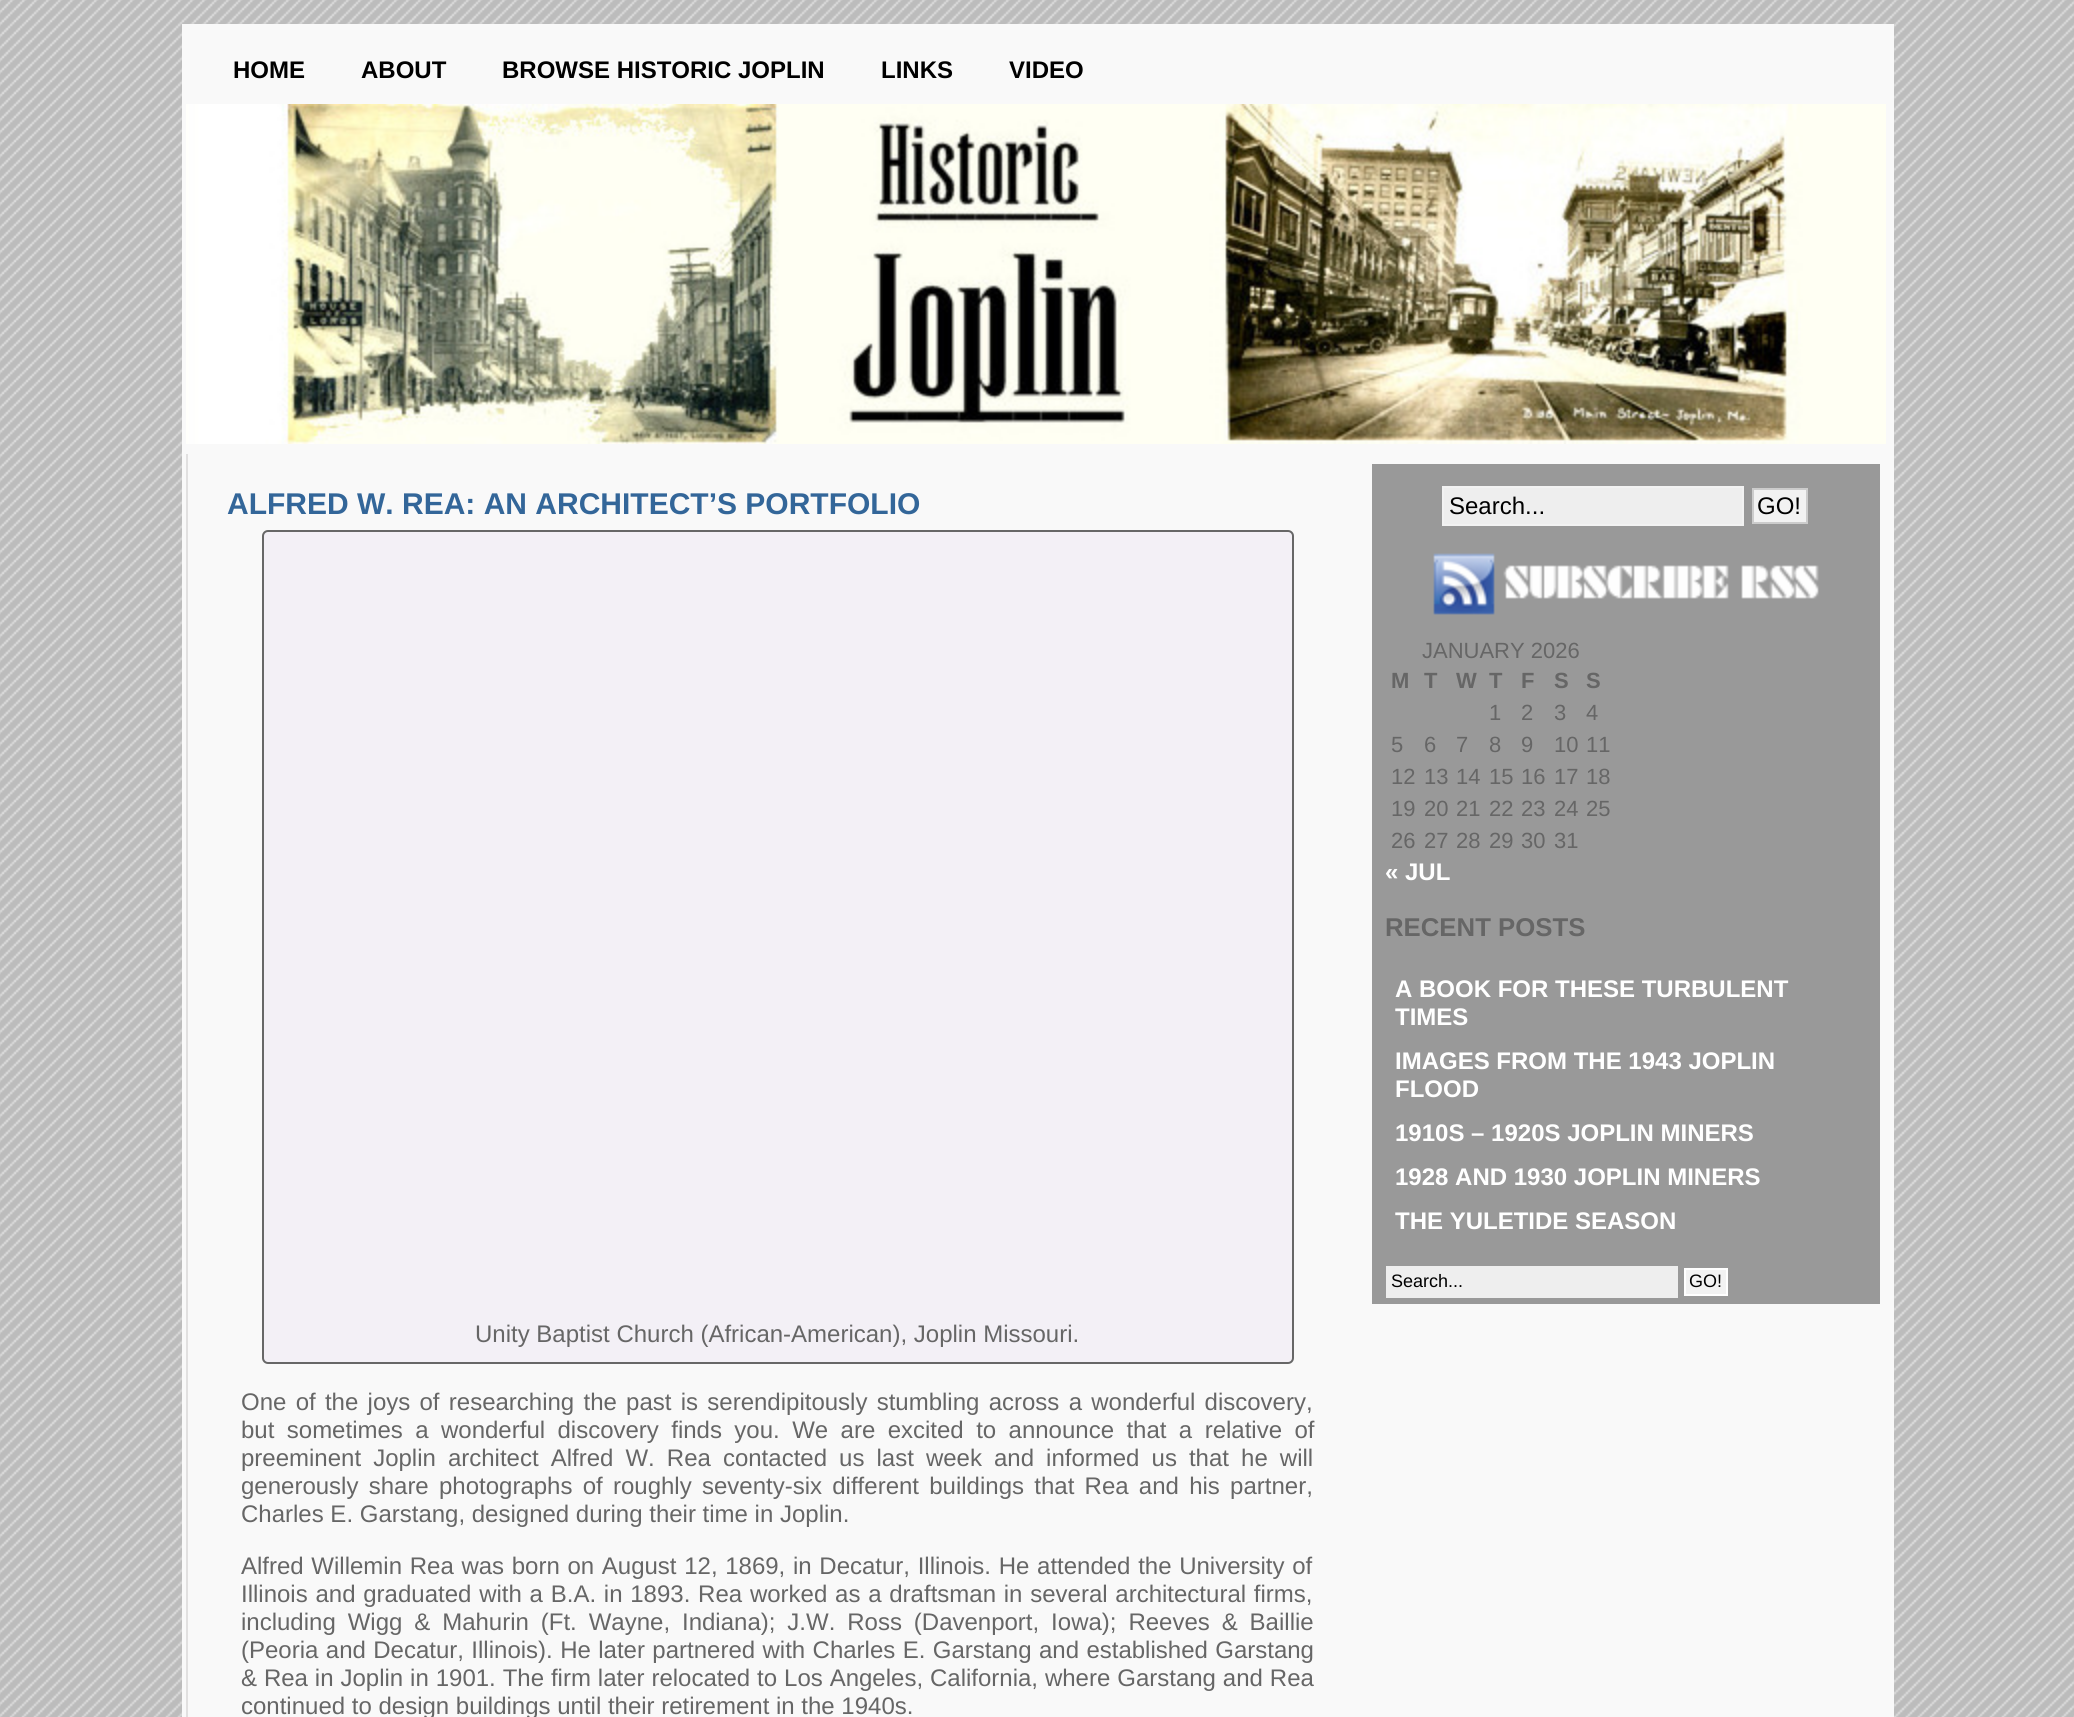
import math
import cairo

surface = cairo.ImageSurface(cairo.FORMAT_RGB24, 2074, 1717)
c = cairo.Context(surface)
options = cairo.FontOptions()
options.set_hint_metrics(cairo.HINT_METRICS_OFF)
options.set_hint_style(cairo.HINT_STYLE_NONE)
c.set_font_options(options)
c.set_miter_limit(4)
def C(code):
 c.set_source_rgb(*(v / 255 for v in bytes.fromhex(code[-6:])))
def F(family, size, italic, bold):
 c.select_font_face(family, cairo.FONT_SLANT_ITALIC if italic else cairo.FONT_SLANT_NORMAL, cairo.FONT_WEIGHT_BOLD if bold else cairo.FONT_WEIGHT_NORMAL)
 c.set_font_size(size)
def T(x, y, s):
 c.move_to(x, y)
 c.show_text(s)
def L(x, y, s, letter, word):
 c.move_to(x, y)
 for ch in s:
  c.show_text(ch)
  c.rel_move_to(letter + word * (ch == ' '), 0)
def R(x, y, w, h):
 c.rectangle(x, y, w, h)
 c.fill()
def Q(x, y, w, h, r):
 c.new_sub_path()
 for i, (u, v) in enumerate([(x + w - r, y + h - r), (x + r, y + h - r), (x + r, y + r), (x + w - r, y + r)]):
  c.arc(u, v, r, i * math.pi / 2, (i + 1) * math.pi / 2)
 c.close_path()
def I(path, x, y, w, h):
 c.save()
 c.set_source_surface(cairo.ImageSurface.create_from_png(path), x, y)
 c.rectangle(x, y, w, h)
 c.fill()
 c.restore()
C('ffffff')
c.paint()
I('1.png',0,0,2074,1717)
C('f9f9f9')
R(182,24,1712,1693)
F('Liberation Sans',24,0,1)
C('000000')
T(233,78,'HOME')
T(361,78,'ABOUT')
T(502,78,'BROWSE HISTORIC JOPLIN')
T(881,78,'LINKS')
T(1009,78,'VIDEO')
I('2.png',186,104,1700,340)
C('e1e0e0')
R(186,454,2,1263)
F('Liberation Sans',30,0,1)
C('336699')
T(227,514,'ALFRED W. REA: AN ARCHITECT’S PORTFOLIO')
C('f3f0f6')
Q(263,531,1030,832,5)
c.fill_preserve()
C('676767')
c.stroke()
F('Liberation Sans',24,0,0)
C('666666')
T(475,1342,'Unity Baptist Church (African-American), Joplin Missouri.')
L(241,1410,'One of the joys of researching the past is serendipitously stumbling across a wonderful discovery,',0,2.6)
L(241,1438,'but sometimes a wonderful discovery finds you. We are excited to announce that a relative of',0,5.75)
L(241,1466,'preeminent Joplin architect Alfred W. Rea contacted us last week and informed us that he will',0,5.4)
L(241,1494,'generously share photographs of roughly seventy-six different buildings that Rea and his partner,',0,3.6)
T(241,1522,'Charles E. Garstang, designed during their time in Joplin.')
L(241,1574,'Alfred Willemin Rea was born on August 12, 1869, in Decatur, Illinois. He attended the University of',0,1)
L(241,1602,'Illinois and graduated with a B.A. in 1893. Rea worked as a draftsman in several architectural firms,',0,1.1)
L(241,1630,'including Wigg & Mahurin (Ft. Wayne, Indiana); J.W. Ross (Davenport, Iowa); Reeves & Baillie',0,5.25)
L(241,1658,'(Peoria and Decatur, Illinois). He later partnered with Charles E. Garstang and established Garstang',0,.75)
L(241,1686,'& Rea in Joplin in 1901. The firm later relocated to Los Angeles, California, where Garstang and Rea',0,.25)
T(241,1714,'continued to design buildings until their retirement in the 1940s.')
C('999999')
R(1372,464,508,840)
C('eeeeee')
c.rectangle(1443,487,300,38)
c.fill_preserve()
C('f2f2f2')
c.stroke()
C('000000')
T(1449,514,'Search...')
C('f2f2f2')
c.rectangle(1753,489,54,34)
c.fill_preserve()
C('cccccc')
c.stroke()
C('000000')
T(1757,514,'GO!')
I('3.png',1433,553,386,62)
F('Liberation Sans',22,0,0)
C('666666')
T(1422,658,'JANUARY 2026')
F('Liberation Sans',22,0,1)
T(1391,688,'M')
T(1424,688,'T')
T(1456,688,'W')
T(1489,688,'T')
T(1521,688,'F')
T(1554,688,'S')
T(1586,688,'S')
F('Liberation Sans',22,0,0)
T(1489,720,'1')
T(1521,720,'2')
T(1554,720,'3')
T(1586,720,'4')
T(1391,752,'5')
T(1424,752,'6')
T(1456,752,'7')
T(1489,752,'8')
T(1521,752,'9')
T(1554,752,'10')
T(1586,752,'11')
T(1391,784,'12')
T(1424,784,'13')
T(1456,784,'14')
T(1489,784,'15')
T(1521,784,'16')
T(1554,784,'17')
T(1586,784,'18')
T(1391,816,'19')
T(1424,816,'20')
T(1456,816,'21')
T(1489,816,'22')
T(1521,816,'23')
T(1554,816,'24')
T(1586,816,'25')
T(1391,848,'26')
T(1424,848,'27')
T(1456,848,'28')
T(1489,848,'29')
T(1521,848,'30')
T(1554,848,'31')
F('Liberation Sans',24,0,1)
C('ffffff')
T(1385,880,'« JUL')
F('Liberation Sans',25.75,0,1)
C('666666')
T(1385,936,'RECENT POSTS')
F('Liberation Sans',24,0,1)
C('ffffff')
T(1395,997,'A BOOK FOR THESE TURBULENT')
T(1395,1025,'TIMES')
T(1395,1069,'IMAGES FROM THE 1943 JOPLIN')
T(1395,1097,'FLOOD')
T(1395,1141,'1910S – 1920S JOPLIN MINERS')
T(1395,1185,'1928 AND 1930 JOPLIN MINERS')
T(1395,1229,'THE YULETIDE SEASON')
C('eeeeee')
R(1386,1266,292,32)
F('Liberation Sans',18,0,0)
C('000000')
T(1391,1287,'Search...')
C('f2f2f2')
c.rectangle(1685,1269,42,26)
c.fill_preserve()
C('ffffff')
c.stroke()
C('000000')
T(1689,1287,'GO!')
surface.write_to_png('o.png')
